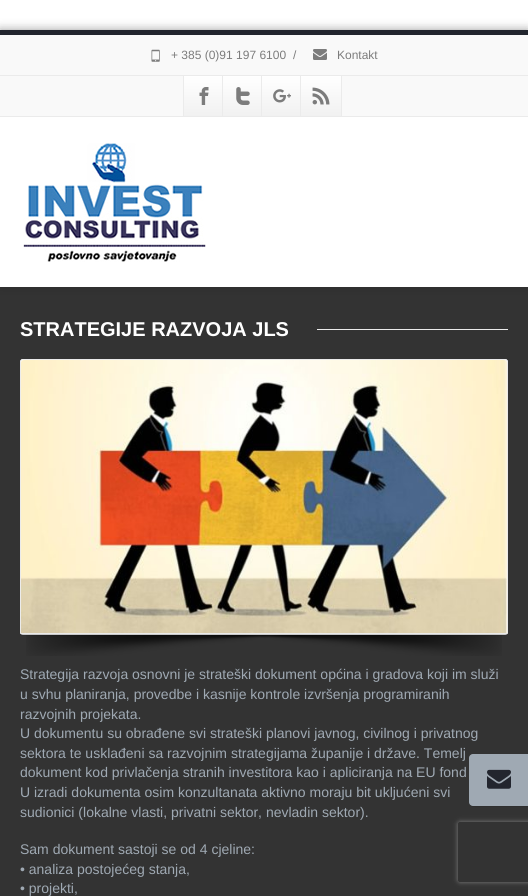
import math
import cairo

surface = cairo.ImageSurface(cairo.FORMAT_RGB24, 528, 896)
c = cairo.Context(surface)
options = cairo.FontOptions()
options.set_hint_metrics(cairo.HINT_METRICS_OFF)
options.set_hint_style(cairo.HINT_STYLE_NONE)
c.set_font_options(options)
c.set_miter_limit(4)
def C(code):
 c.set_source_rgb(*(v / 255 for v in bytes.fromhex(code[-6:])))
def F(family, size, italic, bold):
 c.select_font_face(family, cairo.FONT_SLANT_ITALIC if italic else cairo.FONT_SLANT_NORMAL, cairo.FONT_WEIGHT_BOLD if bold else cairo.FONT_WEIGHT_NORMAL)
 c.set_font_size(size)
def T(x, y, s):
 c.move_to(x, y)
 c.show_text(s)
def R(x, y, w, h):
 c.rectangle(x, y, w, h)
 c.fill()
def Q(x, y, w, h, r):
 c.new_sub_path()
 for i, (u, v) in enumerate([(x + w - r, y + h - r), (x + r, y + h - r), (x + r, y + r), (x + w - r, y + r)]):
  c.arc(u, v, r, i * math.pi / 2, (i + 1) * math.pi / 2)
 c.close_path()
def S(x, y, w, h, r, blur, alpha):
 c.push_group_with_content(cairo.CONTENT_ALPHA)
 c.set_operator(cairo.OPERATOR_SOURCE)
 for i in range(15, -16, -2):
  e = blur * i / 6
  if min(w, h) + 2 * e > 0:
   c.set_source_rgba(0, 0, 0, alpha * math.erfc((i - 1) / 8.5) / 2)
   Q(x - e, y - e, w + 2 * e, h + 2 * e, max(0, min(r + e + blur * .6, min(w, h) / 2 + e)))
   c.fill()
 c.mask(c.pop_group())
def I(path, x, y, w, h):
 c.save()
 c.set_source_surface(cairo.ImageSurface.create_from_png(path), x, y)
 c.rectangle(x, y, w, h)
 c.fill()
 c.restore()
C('ffffff')
c.paint()
C('000000')
S(0,30,528,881,0,5,.4)
C('333333')
R(0,287,528,609)
C('22252e')
R(0,30,528,5)
C('000000')
S(0,119,528,170,0,5,.1)
C('f9f9f9')
R(0,35,528,81)
C('ebebeb')
R(0,116,528,1)
R(0,75,528,1)
I('1.png',151,49,9,13)
F('Liberation Sans',12,0,0)
C('7c7c7c')
T(171,59,'+ 385 (0)91 197 6100')
T(293,59,'/')
I('2.png',313,49,14,11)
T(337,59,'Kontakt')
gradient = cairo.LinearGradient(204,76,204,116)
gradient.add_color_stop_rgba(0,1,1,1,1)
gradient.add_color_stop_rgba(1,0.945,0.945,0.945,1)
c.set_source(gradient)
R(184,76,38,40)
C('ebebeb')
R(183,76,1,40)
I('3.png',199,87,10,18)
gradient = cairo.LinearGradient(243,76,243,116)
gradient.add_color_stop_rgba(0,1,1,1,1)
gradient.add_color_stop_rgba(1,0.945,0.945,0.945,1)
c.set_source(gradient)
R(223,76,38,40)
C('ebebeb')
R(222,76,1,40)
I('4.png',236,87,14,18)
gradient = cairo.LinearGradient(282,76,282,116)
gradient.add_color_stop_rgba(0,1,1,1,1)
gradient.add_color_stop_rgba(1,0.945,0.945,0.945,1)
c.set_source(gradient)
R(262,76,38,40)
C('ebebeb')
R(261,76,1,40)
I('5.png',273,89,18,14)
gradient = cairo.LinearGradient(321,76,321,116)
gradient.add_color_stop_rgba(0,1,1,1,1)
gradient.add_color_stop_rgba(1,0.945,0.945,0.945,1)
c.set_source(gradient)
R(301,76,40,40)
C('ebebeb')
R(341,76,1,40)
R(300,76,1,40)
I('6.png',312,87,18,18)
C('ffffff')
R(0,117,528,170)
I('7.png',23,143,183,119)
F('Liberation Sans',20,0,1)
T(20,336,'STRATEGIJE RAZVOJA JLS')
C('ebebeb')
R(317,329,191,1)
C('2f2f2f')
c.new_path()
c.move_to(20,632)
c.line_to(20,633)
c.curve_to(20,635,21,636,23,636)
c.line_to(505,636)
c.curve_to(507,636,508,635,508,633)
c.line_to(508,632)
c.curve_to(508,634,507,635,505,635)
c.line_to(23,635)
c.curve_to(21,635,20,634,20,632)
c.close_path()
c.fill()
C('ffffff')
Q(20,359,488,276,3)
c.fill()
c.new_path()
c.move_to(507,634)
c.line_to(505,634.5)
c.line_to(23,634.5)
c.line_to(21,634)
c.set_source_rgba(0,0,0,0.22)
c.set_line_width(1)
c.stroke()
c.new_path()
c.move_to(21,634)
c.line_to(20.5,632)
c.line_to(20.5,362)
c.curve_to(20.5,360.5,21.5,359.5,23,359.5)
c.line_to(505,359.5)
c.curve_to(506.5,359.5,507.5,360.5,507.5,362)
c.line_to(507.5,632)
c.line_to(507,634)
C('ebebeb')
c.stroke()
R(21,633,486,1)
I('8.png',21,360,486,273)
I('9.png',26,635,476,21)
F('Liberation Sans',14,0,0)
C('9fa9b3')
T(20,679,'Strategija razvoja osnovni je strateški dokument općina i gradova koji im služi')
T(20,699,'u svhu planiranja, provedbe i kasnije kontrole izvršenja programiranih')
T(20,719,'razvojnih projekata.')
T(20,738,'U dokumentu su obrađene svi strateški planovi javnog, civilnog i privatnog')
T(20,758,'sektora te usklađeni sa razvojnim strategijama županije i države. Temelj')
T(20,777,'dokument kod privlačenja stranih investitora kao i apliciranja na EU fond')
T(20,797,'U izradi dokumenta osim konzultanata aktivno moraju bit ukljućeni svi')
T(20,817,'sudionici (lokalne vlasti, privatni sektor, nevladin sektor).')
T(20,854,'Sam dokument sastoji se od 4 cjeline:')
T(20,874,'• analiza postojećeg stanja,')
T(20,893,'• projekti,')
C('2f2f2f')
c.new_path()
c.move_to(469,802)
c.curve_to(469,809,477,807,482,807)
c.line_to(520,807)
c.curve_to(525,807,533,809,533,802)
c.curve_to(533,804,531,806,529,806)
c.line_to(473,806)
c.curve_to(471,806,469,804,469,802)
c.close_path()
c.fill()
C('9fa9b3')
Q(469,754,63,52,4)
c.fill()
I('10.png',487,769,24,20)
c.save()
c.set_fill_rule(cairo.FILL_RULE_EVEN_ODD)
c.new_path()
c.move_to(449,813)
c.line_to(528,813)
c.line_to(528,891)
c.line_to(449,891)
c.close_path()
c.move_to(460,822)
c.line_to(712,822)
c.curve_to(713,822,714,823,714,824)
c.line_to(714,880)
c.curve_to(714,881,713,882,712,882)
c.line_to(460,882)
c.curve_to(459,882,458,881,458,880)
c.line_to(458,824)
c.curve_to(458,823,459,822,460,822)
c.close_path()
c.clip()
C('808080')
S(458,822,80,60,2,2.5,1)
c.restore()
surface.write_to_png('o.png')
